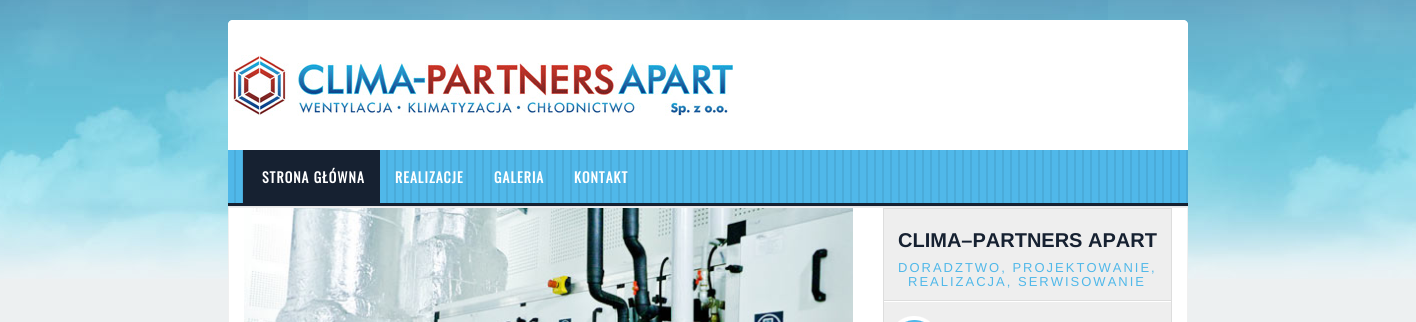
import math
import cairo

surface = cairo.ImageSurface(cairo.FORMAT_RGB24, 1416, 322)
c = cairo.Context(surface)
options = cairo.FontOptions()
options.set_hint_metrics(cairo.HINT_METRICS_OFF)
options.set_hint_style(cairo.HINT_STYLE_NONE)
c.set_font_options(options)
c.set_miter_limit(4)
def C(code):
 c.set_source_rgb(*(v / 255 for v in bytes.fromhex(code[-6:])))
def F(family, size, italic, bold):
 c.select_font_face(family, cairo.FONT_SLANT_ITALIC if italic else cairo.FONT_SLANT_NORMAL, cairo.FONT_WEIGHT_BOLD if bold else cairo.FONT_WEIGHT_NORMAL)
 c.set_font_size(size)
def T(x, y, s):
 c.move_to(x, y)
 c.show_text(s)
def L(x, y, s, letter, word):
 c.move_to(x, y)
 for ch in s:
  c.show_text(ch)
  c.rel_move_to(letter + word * (ch == ' '), 0)
def R(x, y, w, h):
 c.rectangle(x, y, w, h)
 c.fill()
def Q(x, y, w, h, r):
 c.new_sub_path()
 for i, (u, v) in enumerate([(x + w - r, y + h - r), (x + r, y + h - r), (x + r, y + r), (x + w - r, y + r)]):
  c.arc(u, v, r, i * math.pi / 2, (i + 1) * math.pi / 2)
 c.close_path()
def I(path, x, y, w, h):
 c.save()
 c.set_source_surface(cairo.ImageSurface.create_from_png(path), x, y)
 c.rectangle(x, y, w, h)
 c.fill()
 c.restore()
C('edf0f1')
c.paint()
I('1.png',0,0,1416,279)
C('ffffff')
Q(228,20,960,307,5)
c.fill()
c.new_path()
c.move_to(233,20)
c.line_to(1183,20)
c.curve_to(1186,20,1188,22,1188,25)
c.line_to(1188,206)
c.line_to(228,206)
c.line_to(228,25)
c.curve_to(228,22,230,20,233,20)
c.close_path()
c.fill()
C('e7e7e7')
R(228,206,960,1)
I('2.png',233,55,500,61)
C('50b8e9')
R(228,150,960,53)
I('3.png',234,150,954,53)
C('162131')
R(228,203,960,3)
R(243,150,137,53)
F('Oswald',14,0,1)
C('ffffff')
L(262,183,'STRONA GŁÓWNA',1,0)
L(395,183,'REALIZACJE',1,0)
L(494,183,'GALERIA',1,0)
L(574,183,'KONTAKT',1,0)
c.rectangle(228.5,207.5,959,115)
C('f0f0f0')
c.set_line_width(1)
c.stroke()
I('4.png',244,208,609,114)
C('eeeeee')
c.rectangle(883.5,208.5,288,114)
c.fill_preserve()
C('dddddd')
c.stroke()
F('Liberation Sans',20,0,1)
C('162131')
T(898,247,'CLIMA–PARTNERS APART')
F('Liberation Sans',13,0,0)
C('50b8e9')
L(898,272,'DORADZTWO, PROJEKTOWANIE,',2,0)
L(908,286,'REALIZACJA, SERWISOWANIE',2,0)
C('ffffff')
R(884,301,287,1)
C('dddddd')
R(884,300,287,1)
I('5.png',898,316,32,6)
surface.write_to_png('o.png')
